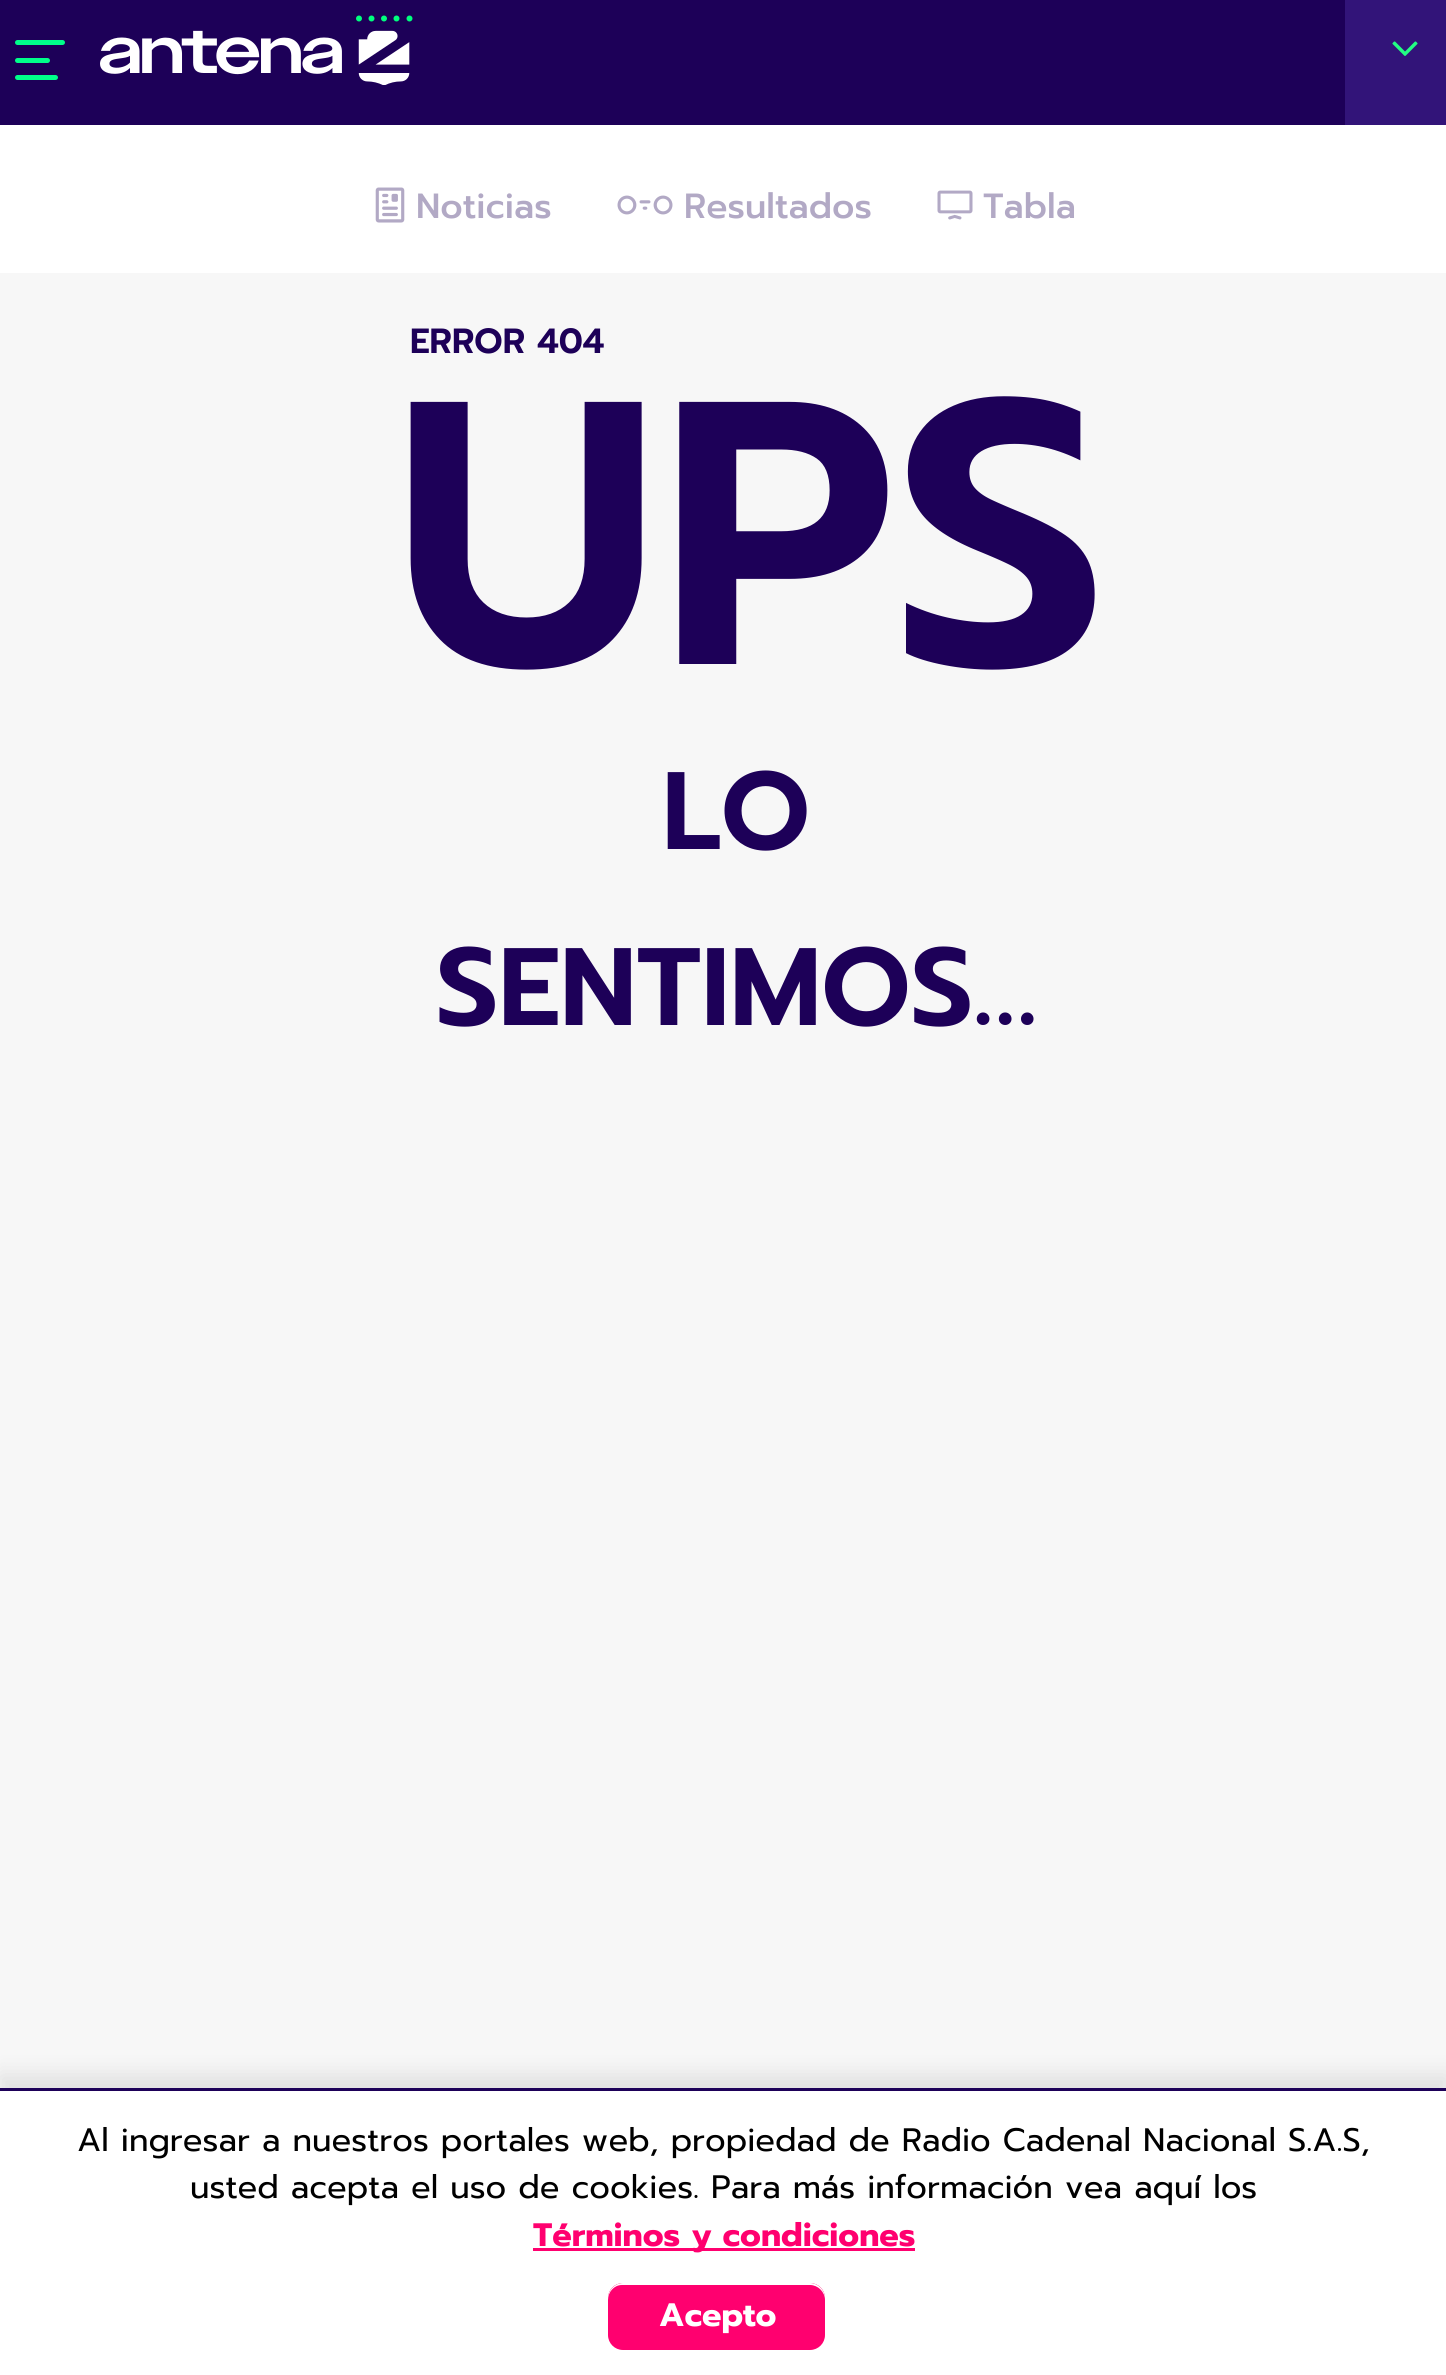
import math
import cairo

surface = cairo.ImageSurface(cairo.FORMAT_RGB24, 1446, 2375)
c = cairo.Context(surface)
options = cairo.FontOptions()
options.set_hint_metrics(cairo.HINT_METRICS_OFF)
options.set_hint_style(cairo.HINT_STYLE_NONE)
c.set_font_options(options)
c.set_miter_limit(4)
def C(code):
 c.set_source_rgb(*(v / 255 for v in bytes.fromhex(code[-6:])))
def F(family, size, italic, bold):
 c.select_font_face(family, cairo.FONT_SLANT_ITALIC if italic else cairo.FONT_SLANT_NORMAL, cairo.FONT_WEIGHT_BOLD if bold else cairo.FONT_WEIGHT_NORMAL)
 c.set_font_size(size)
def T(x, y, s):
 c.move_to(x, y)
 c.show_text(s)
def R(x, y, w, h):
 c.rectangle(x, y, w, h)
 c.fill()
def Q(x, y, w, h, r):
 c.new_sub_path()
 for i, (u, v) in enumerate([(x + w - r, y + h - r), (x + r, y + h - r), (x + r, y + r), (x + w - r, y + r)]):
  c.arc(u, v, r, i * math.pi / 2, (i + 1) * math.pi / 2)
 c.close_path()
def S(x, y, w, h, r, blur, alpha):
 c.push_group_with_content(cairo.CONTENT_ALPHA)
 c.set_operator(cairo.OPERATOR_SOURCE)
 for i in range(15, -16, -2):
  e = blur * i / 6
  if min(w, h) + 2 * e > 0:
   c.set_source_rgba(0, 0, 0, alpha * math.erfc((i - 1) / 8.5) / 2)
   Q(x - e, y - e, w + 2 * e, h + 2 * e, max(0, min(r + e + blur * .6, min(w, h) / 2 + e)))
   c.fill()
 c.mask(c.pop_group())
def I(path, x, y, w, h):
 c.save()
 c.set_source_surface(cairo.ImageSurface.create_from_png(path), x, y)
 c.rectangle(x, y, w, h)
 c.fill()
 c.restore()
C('ffffff')
c.paint()
C('1d0058')
R(0,0,1345,125)
C('00ff8a')
Q(15,75,43,5,2.5)
c.fill()
Q(15,40,50,5,2.5)
c.fill()
Q(15,58,35,5,2.5)
c.fill()
I('1.png',100,15,313,70)
C('321479')
R(1345,0,101,125)
I('2.png',1392,41,26,15)
I('3.png',375,187,30,36)
F('Prompt Medium',35,0,0)
C('b2a9c5')
T(416,218,'Noticias')
I('4.png',617,195,56,20)
T(684,218,'Resultados')
I('5.png',937,190,36,30)
T(983,218,'Tabla')
C('f7f7f7')
R(0,273,1446,1815)
F('Prompt SemiBold',35,0,0)
C('1d0058')
T(410,353,'ERROR 404')
F('Prompt SemiBold',375,0,0)
T(393,664,'UPS')
F('Prompt SemiBold',110,0,0)
T(662,849,'LO')
T(436,1025,'SENTIMOS…')
C('000000')
S(0,2075,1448,288,0,11,.1)
C('ffffff')
R(0,2091,1446,284)
C('1d0058')
R(0,2088,1446,3)
F('Prompt',32.5,0,0)
C('000000')
T(77,2151,'Al ingresar a nuestros portales web, propiedad de Radio Cadenal Nacional S.A.S,')
T(190,2198,'usted acepta el uso de cookies. Para más información vea aquí los')
C('ff006f')
R(533,2248,382,3)
F('Prompt',32.5,0,1)
T(533,2246,'Términos y condiciones')
Q(608,2283,217,67,15)
c.fill()
C('ffffff')
c.new_path()
c.move_to(622,2285)
c.line_to(810,2285)
c.curve_to(818,2285,825,2292,825,2300)
c.line_to(825,2298)
c.curve_to(825,2290,818,2283,810,2283)
c.line_to(623,2283)
c.curve_to(615,2283,608,2290,608,2298)
c.line_to(608,2300)
c.curve_to(608,2292,614,2285,622,2285)
c.close_path()
c.fill()
T(659,2326,'Acepto')
surface.write_to_png('o.png')
